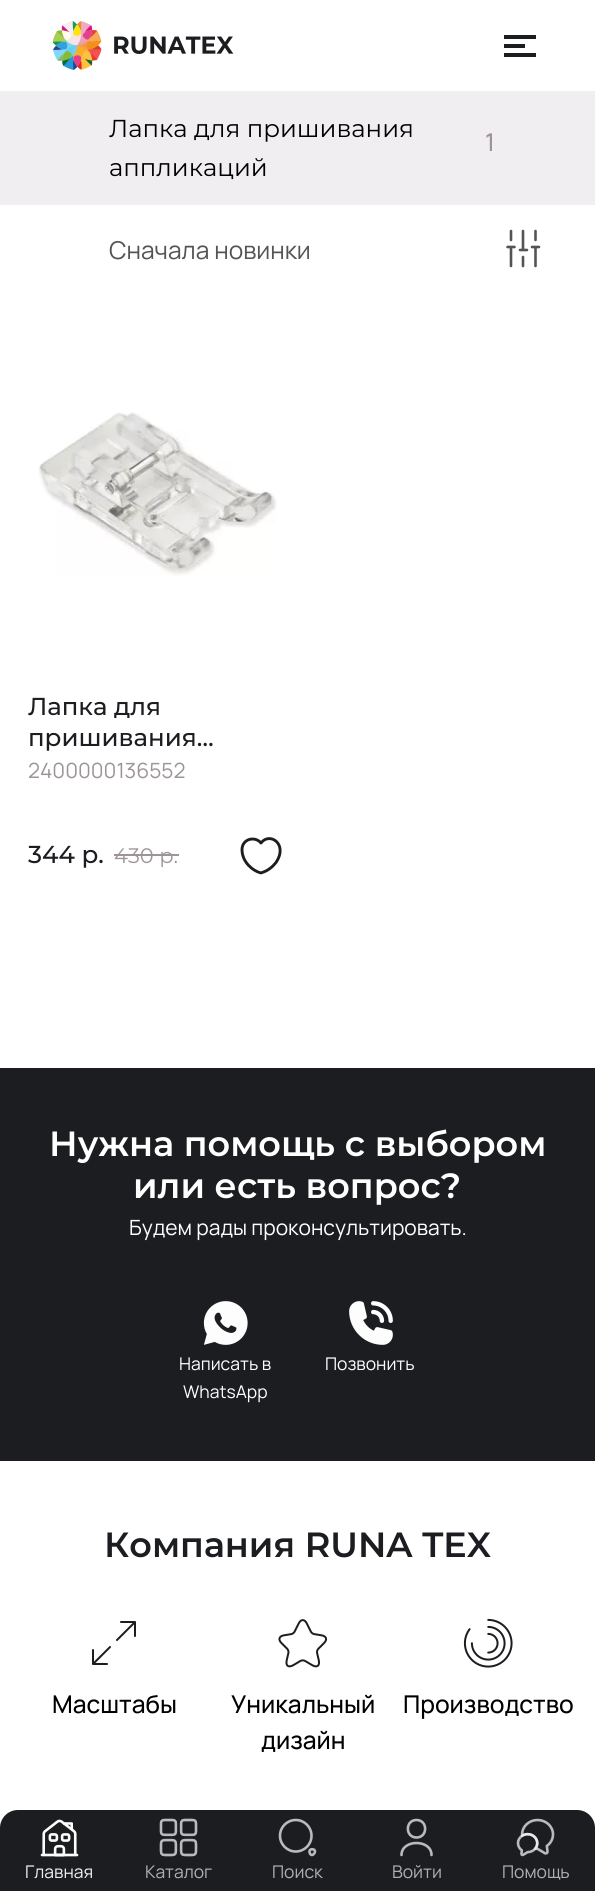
import math
import cairo

surface = cairo.ImageSurface(cairo.FORMAT_RGB24, 595, 1891)
c = cairo.Context(surface)
options = cairo.FontOptions()
options.set_hint_metrics(cairo.HINT_METRICS_OFF)
options.set_hint_style(cairo.HINT_STYLE_NONE)
c.set_font_options(options)
c.set_miter_limit(4)
def C(code):
 c.set_source_rgb(*(v / 255 for v in bytes.fromhex(code[-6:])))
def F(family, size, italic, bold):
 c.select_font_face(family, cairo.FONT_SLANT_ITALIC if italic else cairo.FONT_SLANT_NORMAL, cairo.FONT_WEIGHT_BOLD if bold else cairo.FONT_WEIGHT_NORMAL)
 c.set_font_size(size)
def T(x, y, s):
 c.move_to(x, y)
 c.show_text(s)
def R(x, y, w, h):
 c.rectangle(x, y, w, h)
 c.fill()
def I(path, x, y, w, h):
 c.save()
 c.set_source_surface(cairo.ImageSurface.create_from_png(path), x, y)
 c.rectangle(x, y, w, h)
 c.fill()
 c.restore()
C('ffffff')
c.paint()
I('1.png',53,21,181,49)
C('1c1d20')
R(504,44,21,4)
R(504,35,32,4)
R(504,53,32,4)
C('f1eef1')
R(0,91,595,114)
F('Montserrat',24.5,0,0)
C('000000')
T(109,137,'Лапка для пришивания')
T(109,176,'аппликаций')
F('Manrope Medium',24.5,0,0)
C('9d9595')
T(485,151,'1')
F('Manrope',24.5,0,0)
C('545454')
T(109,259,'Сначала новинки')
c.new_path()
c.move_to(535.5,266)
c.line_to(535.5,247)
c.move_to(535.5,240)
c.line_to(535.5,231)
c.move_to(523,266)
c.line_to(523,257)
c.move_to(523,250)
c.line_to(523,231)
c.move_to(511,266)
c.line_to(511,247)
c.move_to(511,240)
c.line_to(511,231)
c.move_to(507.5,247)
c.line_to(514.5,247)
c.move_to(532,247)
c.line_to(539,247)
c.move_to(520,250)
c.line_to(527,250)
c.set_line_width(2.6)
c.set_line_cap(cairo.LINE_CAP_ROUND)
c.set_line_join(cairo.LINE_JOIN_ROUND)
c.stroke()
I('2.png',39,412,238,164)
F('Montserrat Medium',24.5,0,0)
C('1c1d20')
T(28,715,'Лапка для')
T(28,746,'пришивания…')
F('Manrope',21,0,0)
C('9d9595')
T(28,778,'2400000136552')
F('Montserrat Medium',24.5,0,0)
C('1c1d20')
T(28,863,'344 р.')
F('Montserrat',21,0,0)
C('9d9595')
T(114,863,'430 р.')
R(114,854,65,2)
c.new_path()
c.move_to(262,872.5)
c.curve_to(261.5,873,260.5,873,259.5,872.5)
c.curve_to(254,871,242,863,242,849.5)
c.curve_to(242,843.5,246.5,839,252.5,839)
c.curve_to(256,839,259,840.5,261,843)
c.curve_to(269.5,831.5,288.5,844,276,862.5)
c.curve_to(272.5,867,267.5,871,262,872.5)
c.close_path()
C('1c1d20')
c.set_line_width(2.9)
c.stroke()
R(0,1068,595,393)
F('Montserrat SemiBold',35,0,0)
C('ffffff')
T(49,1156,'Нужна помощь с выбором')
T(133,1198,'или есть вопрос?')
F('Manrope',21,0,0)
T(129,1235,'Будем рады проконсультировать.')
I('3.png',203,1301,45,44)
F('Manrope',17.5,0,0)
T(179,1370,'Написать в')
T(183,1398,'WhatsApp')
I('4.png',349,1301,44,44)
T(325,1370,'Позвонить')
F('Montserrat SemiBold',35,0,0)
C('1c1d20')
T(104,1557,'Компания RUNA TEX')
c.new_path()
c.move_to(135,1636)
c.line_to(135,1622)
c.line_to(121,1622)
c.move_to(93,1650)
c.line_to(93,1664)
c.line_to(107,1664)
c.move_to(135,1622)
c.line_to(117,1640)
c.move_to(110,1647)
c.line_to(93,1664)
c.set_line_width(2)
c.stroke()
F('Manrope Medium',24.5,0,0)
C('000000')
T(52,1713,'Масштабы')
I('5.png',278,1619,50,49)
T(231,1713,'Уникальный')
T(261,1749,'дизайн')
I('6.png',463,1618,50,50)
T(403,1713,'Производство')
C('1c1d20')
c.new_path()
c.move_to(18,1810)
c.line_to(577,1810)
c.curve_to(587,1810,595,1818,595,1828)
c.line_to(595,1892)
c.line_to(0,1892)
c.line_to(0,1828)
c.curve_to(0,1818,8,1810,18,1810)
c.close_path()
c.fill()
I('7.png',40,1819,39,38)
F('Manrope',17.5,0,0)
C('f1eef1')
T(25,1878,'Главная')
I('8.png',159,1818,39,39)
C('b1afb2')
T(145,1878,'Каталог')
I('9.png',278,1818,39,39)
T(272,1878,'Поиск')
c.new_path()
c.move_to(416.5,1837.5)
c.curve_to(428,1837.5,428,1820,416.5,1820)
c.curve_to(405,1820,405,1837.5,416.5,1837.5)
c.close_path()
c.move_to(431.5,1855)
c.curve_to(431.5,1839,401.5,1839,401.5,1855)
C('bababb')
c.set_line_width(2.6)
c.stroke()
C('b1afb2')
T(392,1878,'Войти')
I('10.png',516,1818,39,39)
T(502,1878,'Помощь')
surface.write_to_png('o.png')
